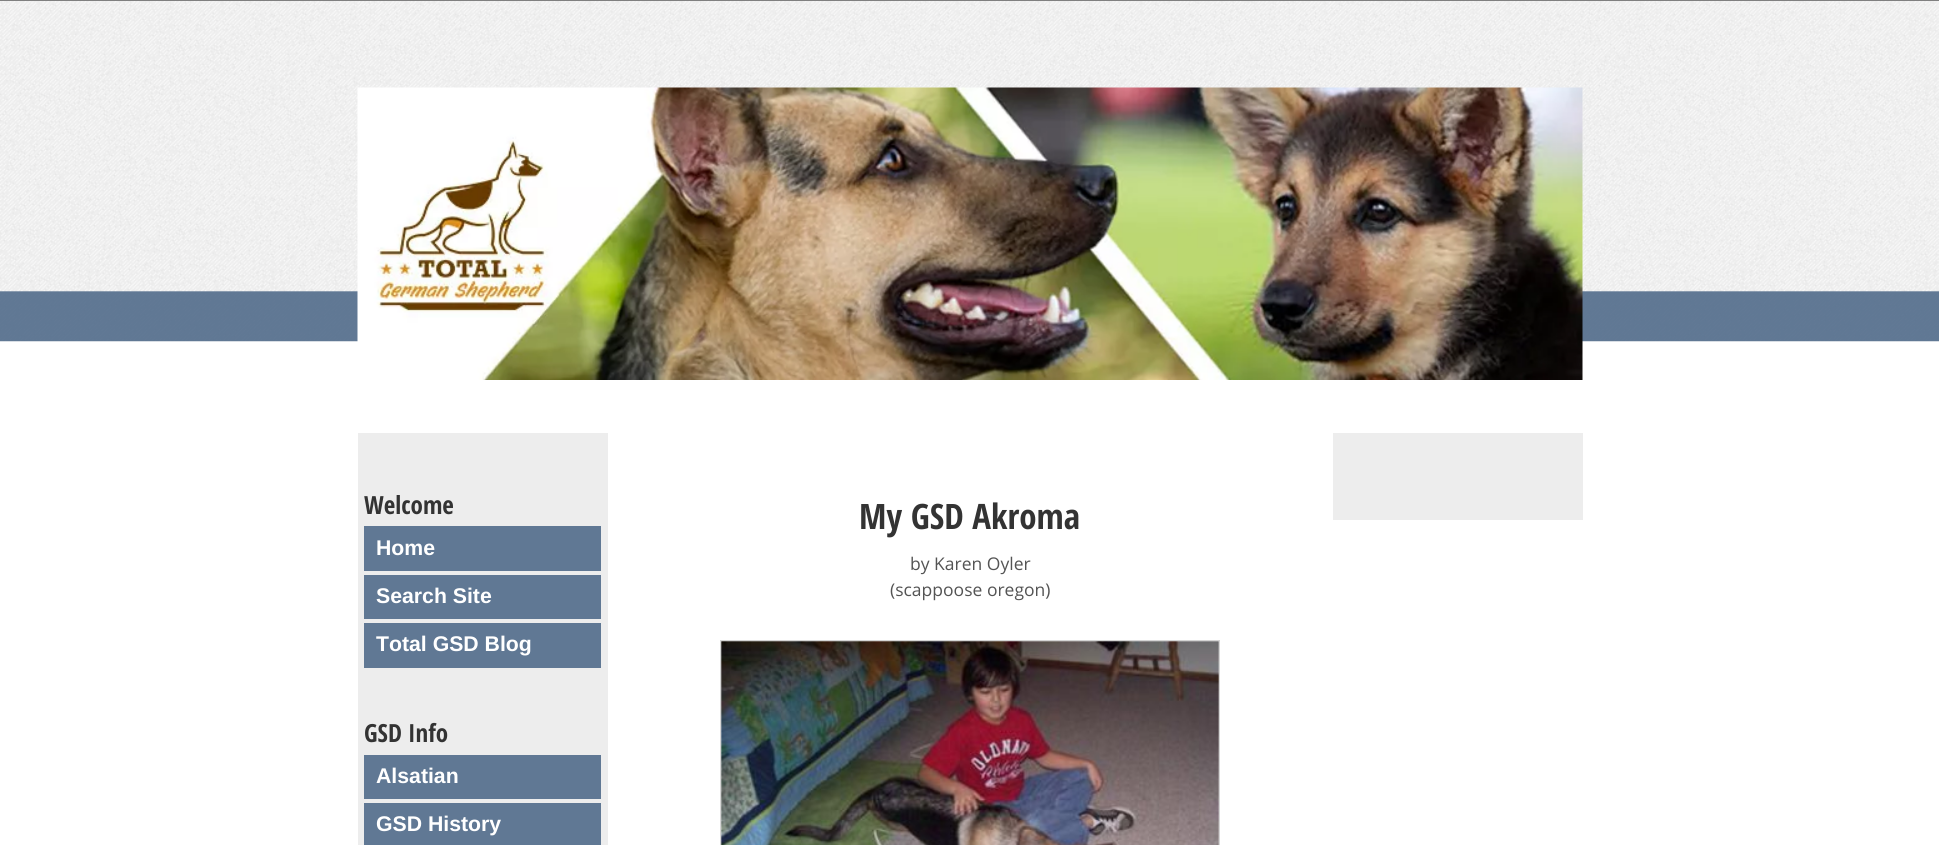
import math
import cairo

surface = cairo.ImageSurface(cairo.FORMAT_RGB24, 1939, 845)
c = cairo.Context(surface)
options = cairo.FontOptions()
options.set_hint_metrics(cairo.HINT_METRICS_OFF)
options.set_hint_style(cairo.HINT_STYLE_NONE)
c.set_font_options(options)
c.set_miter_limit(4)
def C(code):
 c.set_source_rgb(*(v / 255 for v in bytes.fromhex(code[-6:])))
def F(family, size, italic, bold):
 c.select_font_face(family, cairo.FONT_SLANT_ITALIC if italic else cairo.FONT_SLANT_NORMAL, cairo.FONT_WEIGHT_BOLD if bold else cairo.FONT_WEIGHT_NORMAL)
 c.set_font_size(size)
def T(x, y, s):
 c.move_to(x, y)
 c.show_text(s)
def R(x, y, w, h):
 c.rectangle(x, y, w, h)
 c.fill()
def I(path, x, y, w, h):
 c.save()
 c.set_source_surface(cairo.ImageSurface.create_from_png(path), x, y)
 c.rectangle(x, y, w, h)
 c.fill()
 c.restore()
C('ffffff')
c.paint()
I('1.png',0,1,1939,341)
I('2.png',357,87,1226,293)
C('808080')
R(0,0,1939,1)
C('ededed')
R(1333,433,250,87)
R(358,433,250,412)
F('Open Sans Condensed',25,0,1)
C('333333')
T(364,514,'Welcome')
C('607894')
R(364,526,237,45)
F('Liberation Sans',21.25,0,1)
C('ffffff')
T(376,555,'Home')
C('607894')
R(364,575,237,44)
C('ffffff')
T(376,603,'Search Site')
C('607894')
R(364,623,237,45)
C('ffffff')
T(376,651,'Total GSD Blog')
F('Open Sans Condensed',25,0,1)
C('333333')
T(364,742,'GSD Info')
C('607894')
R(364,755,237,44)
F('Liberation Sans',21.25,0,1)
C('ffffff')
T(376,783,'Alsatian')
C('607894')
R(364,803,237,42)
C('ffffff')
T(376,831,'GSD History')
F('Open Sans Condensed',35,0,1)
C('333333')
T(859,529,'My GSD Akroma')
F('Open Sans',17.5,0,0)
C('545454')
T(910,570,'by Karen Oyler')
T(890,596,'(scappoose oregon)')
c.rectangle(720.5,640.5,499,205)
C('d4d4d4')
c.set_line_width(1)
c.stroke()
I('3.png',721,641,498,204)
surface.write_to_png('o.png')
